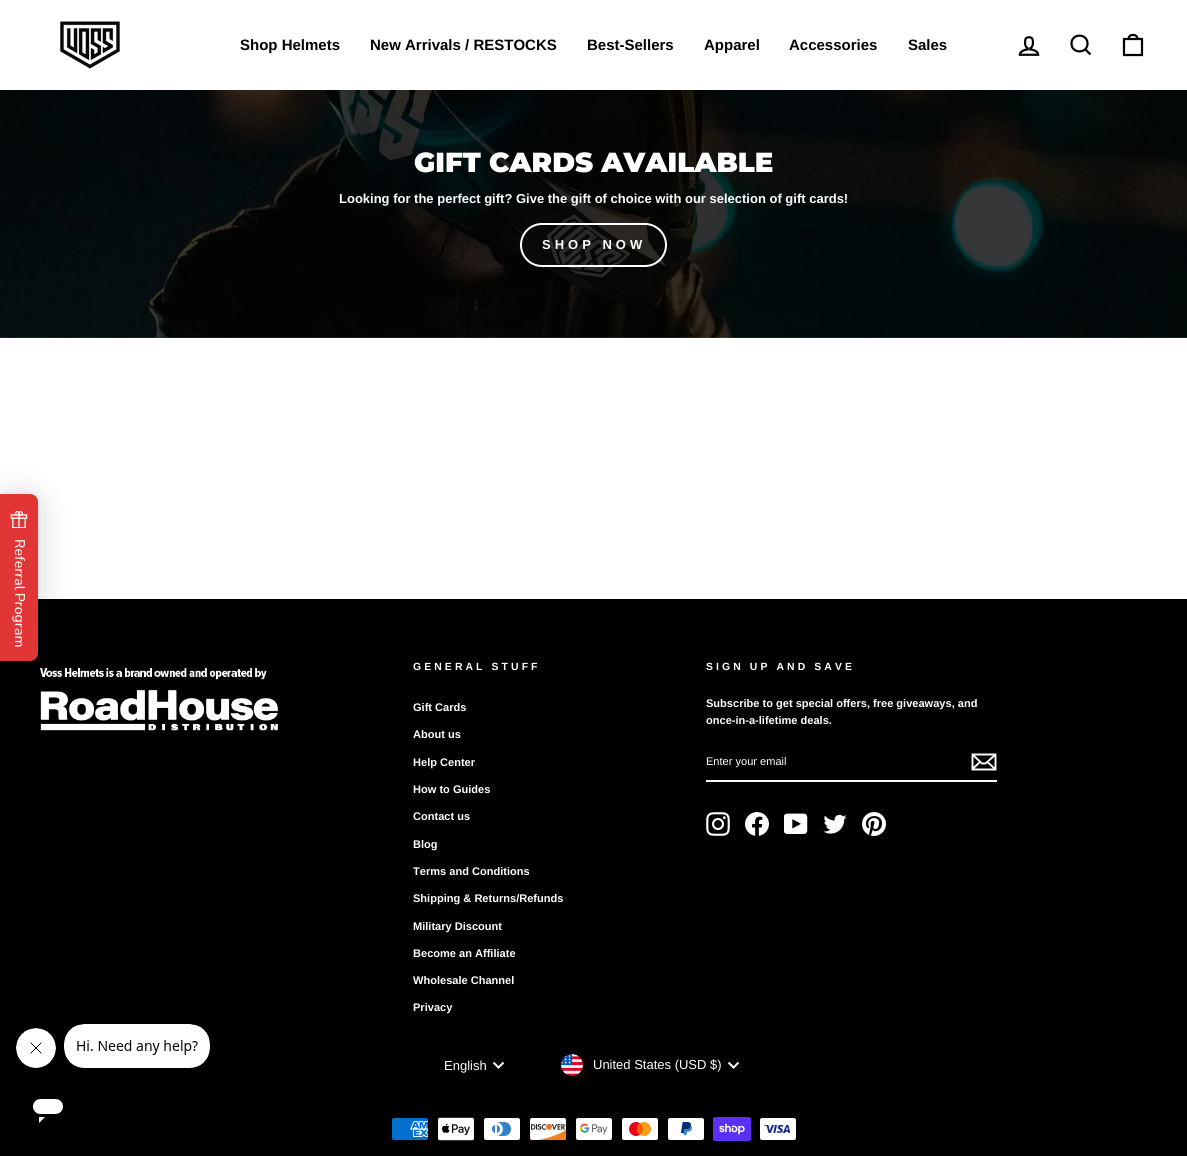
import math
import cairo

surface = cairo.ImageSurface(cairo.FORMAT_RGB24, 1187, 1156)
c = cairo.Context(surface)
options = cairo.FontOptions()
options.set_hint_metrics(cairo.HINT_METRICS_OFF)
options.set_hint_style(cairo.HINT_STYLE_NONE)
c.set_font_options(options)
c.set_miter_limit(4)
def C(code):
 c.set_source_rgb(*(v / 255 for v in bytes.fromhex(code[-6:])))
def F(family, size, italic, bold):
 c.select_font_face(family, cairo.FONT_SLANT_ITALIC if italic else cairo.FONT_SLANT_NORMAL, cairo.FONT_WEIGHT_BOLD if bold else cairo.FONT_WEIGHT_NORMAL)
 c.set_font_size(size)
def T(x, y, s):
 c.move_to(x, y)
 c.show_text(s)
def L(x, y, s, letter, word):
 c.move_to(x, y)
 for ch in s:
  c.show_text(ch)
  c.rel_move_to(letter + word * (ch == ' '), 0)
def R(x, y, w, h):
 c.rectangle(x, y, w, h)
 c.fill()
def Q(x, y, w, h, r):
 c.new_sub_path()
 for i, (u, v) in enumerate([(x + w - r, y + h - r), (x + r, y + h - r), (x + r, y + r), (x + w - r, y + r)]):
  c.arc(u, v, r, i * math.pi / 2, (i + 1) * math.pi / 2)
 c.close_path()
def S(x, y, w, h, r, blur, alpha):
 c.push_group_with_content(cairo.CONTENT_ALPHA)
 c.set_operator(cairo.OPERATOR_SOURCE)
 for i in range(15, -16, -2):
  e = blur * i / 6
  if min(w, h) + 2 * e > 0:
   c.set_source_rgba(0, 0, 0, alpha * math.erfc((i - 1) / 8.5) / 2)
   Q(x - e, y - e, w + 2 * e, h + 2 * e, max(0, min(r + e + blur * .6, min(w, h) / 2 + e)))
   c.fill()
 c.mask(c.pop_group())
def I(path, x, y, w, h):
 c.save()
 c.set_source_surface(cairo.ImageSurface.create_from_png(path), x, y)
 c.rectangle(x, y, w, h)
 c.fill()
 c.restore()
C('ffffff')
c.paint()
C('000000')
R(0,599,1187,557)
I('5.png',40,667,238,64)
C('000000')
S(0,496,38,167,8,16,.16)
S(0,495,38,167,8,3,.06)
C('e23636')
c.new_path()
c.move_to(0,494)
c.line_to(30,494)
c.curve_to(34.5,494,38,497.5,38,502)
c.line_to(38,653)
c.curve_to(38,657.5,34.5,661,30,661)
c.line_to(0,661)
c.close_path()
c.fill()
I('1.png',10,511,18,17)
F('Nunito Medium',14,0,0)
C('ffffff')
c.save()
c.translate(15,539)
c.rotate(90 * math.pi / 180)
L(0,0,'Referral Program',0,-1)
c.restore()
I('2.png',60,21,60,48)
F('Liberation Sans',15,0,1)
C('000000')
T(240,50,'Shop Helmets')
T(370,50,'New Arrivals / RESTOCKS')
T(587,50,'Best-Sellers')
T(704,50,'Apparel')
T(789,50,'Accessories')
T(908,50,'Sales')
I('3.png',1018,36,22,20)
c.new_path()
c.move_to(1087.5,43.5)
c.curve_to(1087.5,54,1071.5,54,1071.5,43.5)
c.curve_to(1071.5,33,1087.5,33,1087.5,43.5)
c.close_path()
c.move_to(1090.5,54.5)
c.line_to(1085.5,49.5)
c.set_line_width(2.2)
c.stroke()
c.new_path()
c.move_to(1124,39)
c.line_to(1142,39)
c.line_to(1142,55)
c.line_to(1124,55)
c.close_path()
c.move_to(1128.5,39)
c.curve_to(1128.5,33.5,1137.5,33.5,1137.5,39)
c.stroke()
I('4.png',0,90,1187,248)
gradient = cairo.RadialGradient(0,0,0,0,0,1)
gradient.set_matrix(cairo.Matrix(1 / 680, 0, 0, 1 / 264, -1 * 594 / 680, -1 * 208 / 264))
gradient.add_color_stop_rgba(0,0,0,0,.2)
gradient.add_color_stop_rgba(.6,0,0,0,0)
c.set_source(gradient)
R(354,112,390,208)
F('Montserrat Black',27.6,0,0)
C('ffffff')
T(414,172,'GIFT CARDS AVAILABLE')
F('Liberation Sans',13,0,1)
T(339,203,'Looking for the perfect gift? Give the gift of choice with our selection of gift cards!')
Q(521,224,145,42,21)
c.set_line_width(2)
c.stroke()
L(542,249,'SHOP NOW',4,0)
F('Liberation Sans',10.4,0,1)
L(413,670,'GENERAL STUFF',3.1,0)
F('Liberation Sans',11.05,0,1)
T(413,711,'Gift Cards')
T(413,738,'About us')
T(413,766,'Help Center')
T(413,793,'How to Guides')
T(413,820,'Contact us')
T(413,848,'Blog')
T(413,875,'Terms and Conditions')
T(413,902,'Shipping & Returns/Refunds')
T(413,930,'Military Discount')
T(413,957,'Become an Affiliate')
T(413,984,'Wholesale Channel')
T(413,1011,'Privacy')
F('Liberation Sans',10.4,0,1)
L(706,670,'SIGN UP AND SAVE',3.1,0)
F('Liberation Sans',11.05,0,1)
T(706,707,'Subscribe to get special offers, free giveaways, and')
T(706,724,'once-in-a-lifetime deals.')
R(706,780,291,2)
F('Liberation Sans',11.05,0,0)
T(706,765,'Enter your email')
c.new_path()
c.move_to(995.5,769.5)
c.line_to(972.5,769.5)
c.line_to(972.5,754.5)
c.line_to(995.5,754.5)
c.close_path()
c.move_to(972.5,754.5)
c.line_to(982,763.5)
c.line_to(985.5,763.5)
c.line_to(995.5,754.5)
c.move_to(980,762)
c.line_to(972.5,769)
c.move_to(995.5,769.5)
c.line_to(987.5,762)
c.set_line_width(1.9)
c.stroke()
I('6.png',706,812,24,24)
I('7.png',745,812,24,24)
I('8.png',784,813,24,21)
I('9.png',823,814,24,20)
I('10.png',862,812,24,24)
F('Liberation Sans',13,0,0)
T(444,1070,'English')
c.new_path()
c.move_to(493.5,1062.5)
c.line_to(498.5,1067.5)
c.line_to(503.5,1062.5)
c.set_line_width(2)
c.stroke()
I('11.png',561,1054,22,22)
T(593,1069,'United States (USD $)')
c.new_path()
c.move_to(728.5,1062.5)
c.line_to(733.5,1067.5)
c.line_to(738.5,1062.5)
c.stroke()
I('12.png',392,1118,36,22)
I('13.png',438,1117,36,24)
I('14.png',484,1118,36,22)
I('15.png',530,1118,37,22)
I('16.png',576,1118,36,22)
I('17.png',622,1118,36,22)
I('18.png',668,1118,36,22)
I('19.png',713,1117,38,24)
I('20.png',760,1118,36,22)
I('21.png',16,1028,40,40)
I('22.png',64,1024,146,44)
I('23.png',25,1076,47,47)
surface.write_to_png('o.png')
